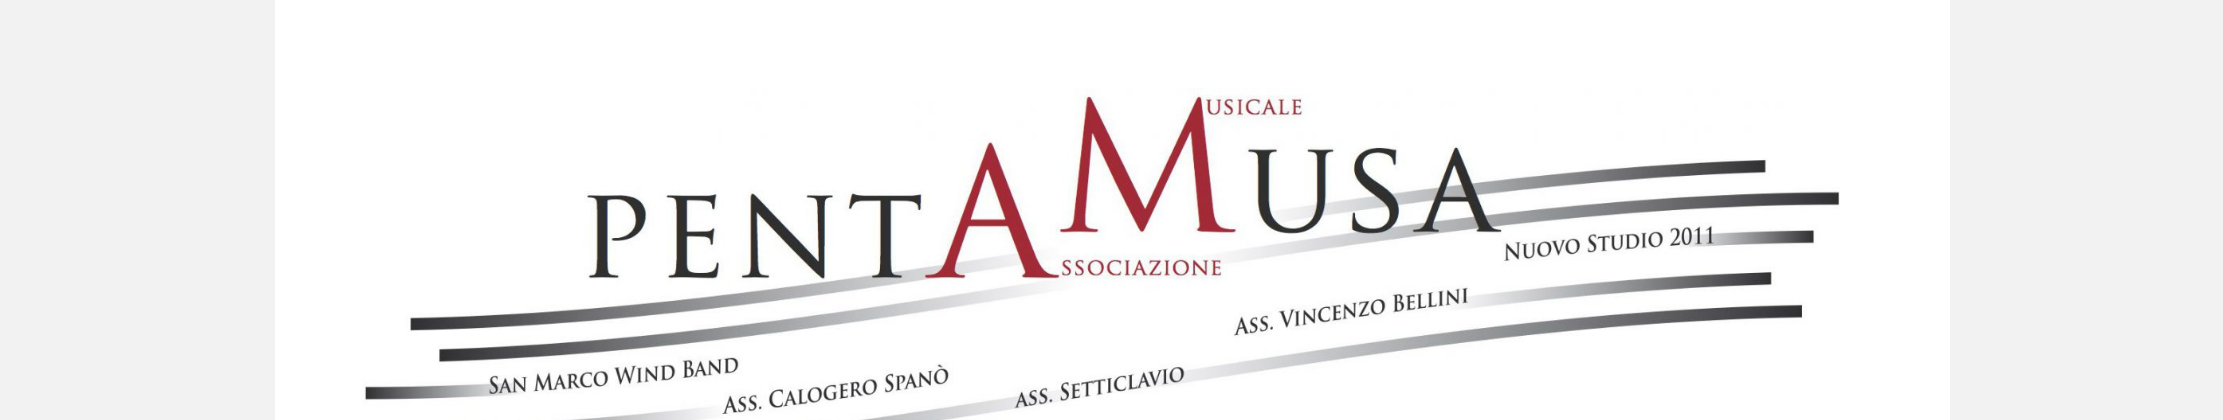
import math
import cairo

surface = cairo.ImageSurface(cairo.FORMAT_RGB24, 2223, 420)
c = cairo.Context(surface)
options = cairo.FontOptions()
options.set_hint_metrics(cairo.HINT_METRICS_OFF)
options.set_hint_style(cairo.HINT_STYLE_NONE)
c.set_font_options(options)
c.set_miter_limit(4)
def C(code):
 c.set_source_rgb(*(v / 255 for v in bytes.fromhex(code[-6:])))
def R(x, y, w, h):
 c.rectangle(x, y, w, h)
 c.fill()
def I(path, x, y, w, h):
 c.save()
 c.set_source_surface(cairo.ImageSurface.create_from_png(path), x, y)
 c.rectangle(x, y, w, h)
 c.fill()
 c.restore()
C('f2f2f2')
c.paint()
C('ffffff')
R(275,0,1675,420)
I('1.png',362,88,1478,332)
surface.write_to_png('o.png')
